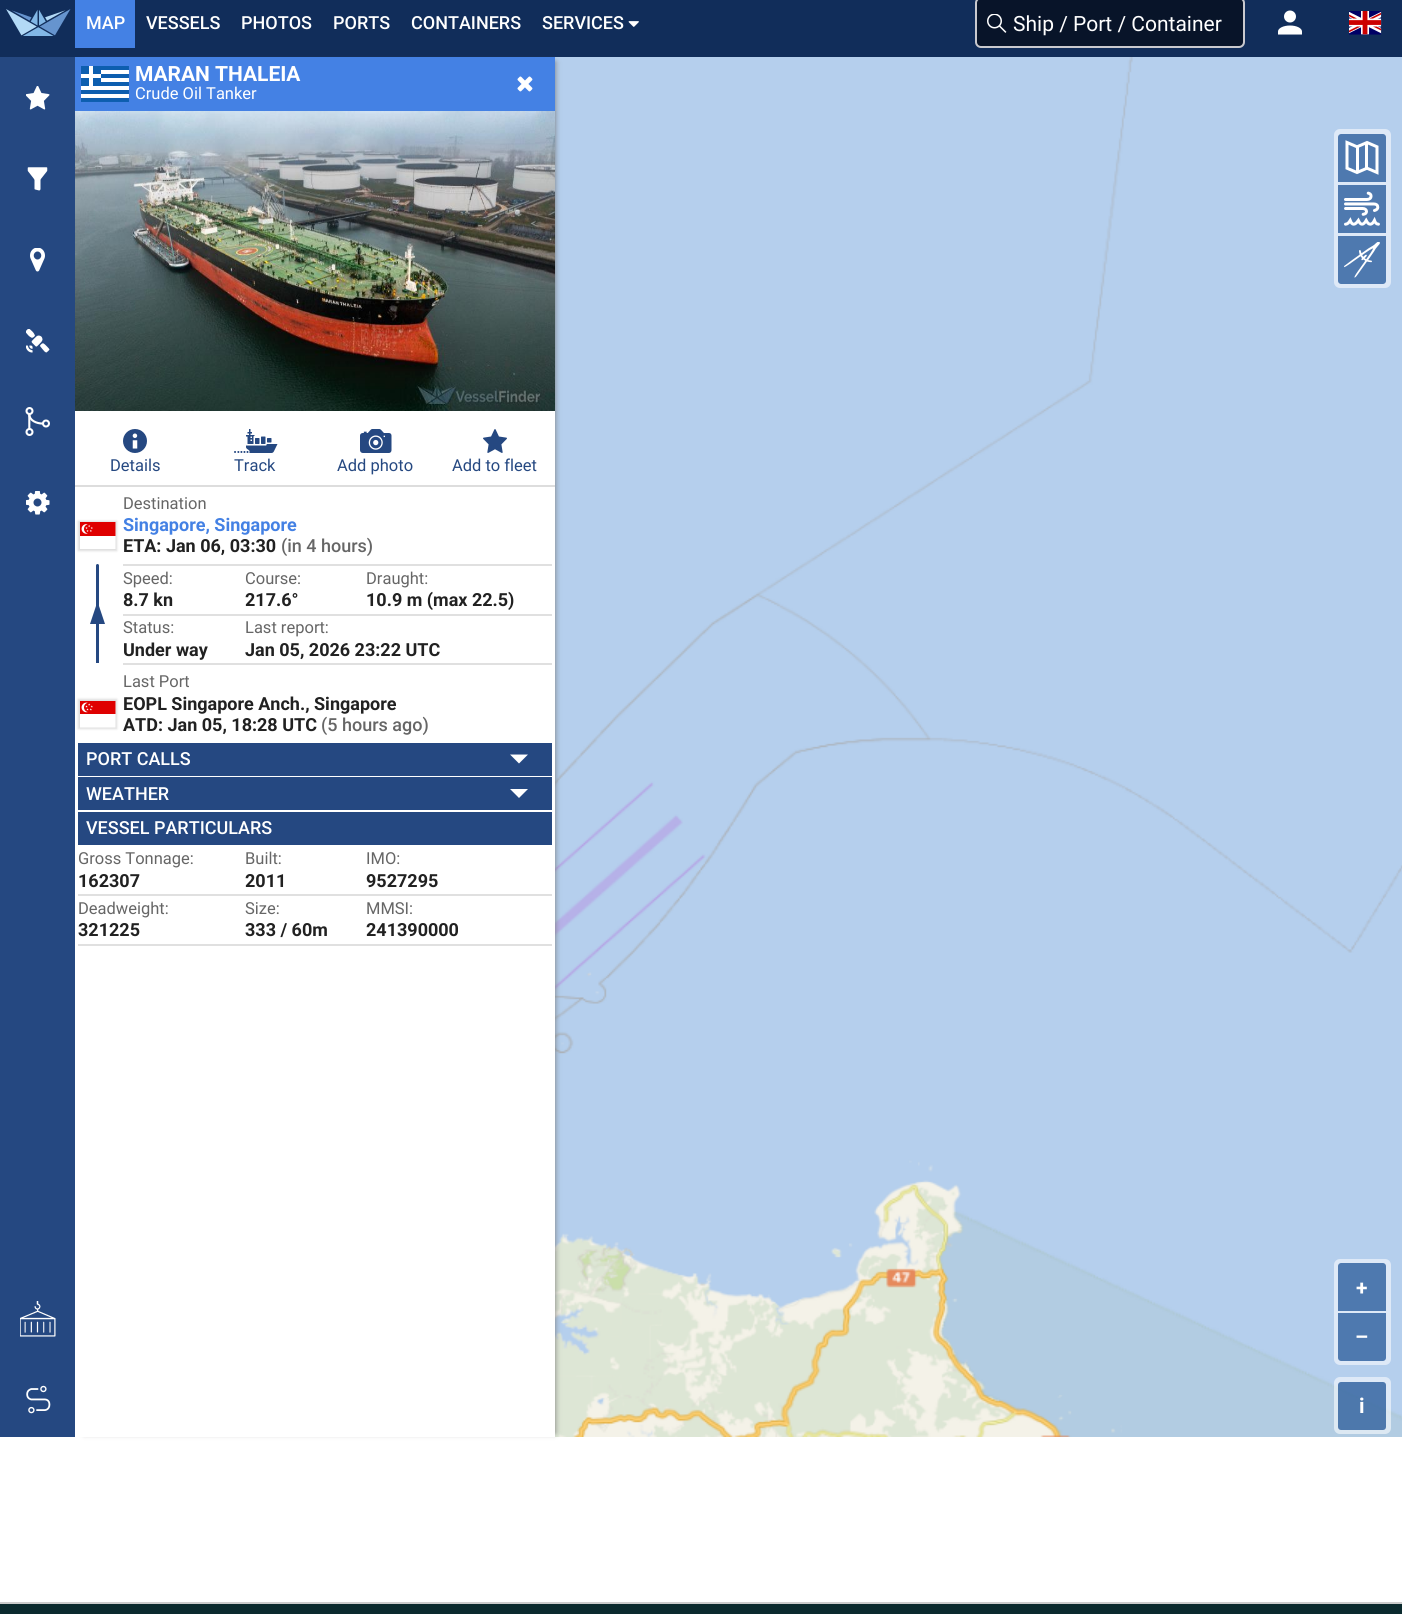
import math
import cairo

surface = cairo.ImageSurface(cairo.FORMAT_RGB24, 1402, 1614)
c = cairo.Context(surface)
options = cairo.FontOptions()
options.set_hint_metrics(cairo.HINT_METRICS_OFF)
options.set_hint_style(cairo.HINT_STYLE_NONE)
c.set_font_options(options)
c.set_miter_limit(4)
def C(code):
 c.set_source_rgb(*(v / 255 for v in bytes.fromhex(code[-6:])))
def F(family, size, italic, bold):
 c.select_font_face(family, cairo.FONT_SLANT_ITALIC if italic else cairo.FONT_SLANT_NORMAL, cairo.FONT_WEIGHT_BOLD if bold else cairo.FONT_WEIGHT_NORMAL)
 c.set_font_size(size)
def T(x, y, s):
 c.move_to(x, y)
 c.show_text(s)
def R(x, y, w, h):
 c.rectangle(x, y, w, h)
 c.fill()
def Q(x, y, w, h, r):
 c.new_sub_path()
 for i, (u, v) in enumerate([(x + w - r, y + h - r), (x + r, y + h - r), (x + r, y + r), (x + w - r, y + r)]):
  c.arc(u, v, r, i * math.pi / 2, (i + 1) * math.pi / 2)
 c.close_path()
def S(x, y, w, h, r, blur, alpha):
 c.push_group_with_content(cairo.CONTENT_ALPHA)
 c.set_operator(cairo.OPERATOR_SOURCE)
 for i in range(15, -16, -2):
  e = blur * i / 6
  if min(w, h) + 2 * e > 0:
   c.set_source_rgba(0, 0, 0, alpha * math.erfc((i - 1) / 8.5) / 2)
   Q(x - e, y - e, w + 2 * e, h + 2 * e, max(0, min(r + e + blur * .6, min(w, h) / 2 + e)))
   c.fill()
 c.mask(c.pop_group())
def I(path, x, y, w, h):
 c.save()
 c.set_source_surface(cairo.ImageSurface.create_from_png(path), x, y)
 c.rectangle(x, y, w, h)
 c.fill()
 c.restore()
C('112d5a')
c.paint()
I('1.png',6,9,65,27)
C('4481e4')
R(75,0,60,48)
F('Roboto Medium',18,0,0)
C('ffffff')
T(86,29,'MAP')
T(146,29,'VESSELS')
T(241,29,'PHOTOS')
T(333,29,'PORTS')
T(411,29,'CONTAINERS')
T(542,29,'SERVICES')
I('2.png',628,21,11,6)
C('081429')
Q(976,-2,268,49,5)
c.fill_preserve()
C('c9c9ce')
c.stroke()
I('3.png',987,14,20,19)
F('Roboto',21,0,0)
C('ffffff')
T(1013,31,'Ship / Port / Container')
I('4.png',1278,10,24,25)
I('5.png',1349,11,33,24)
C('254881')
R(0,57,75,1380)
I('6.png',26,86,24,24)
I('7.png',27,167,21,24)
I('8.png',30,248,15,24)
I('9.png',26,329,24,24)
I('10.png',25,407,25,29)
I('11.png',26,491,24,24)
I('12.png',20,1301,36,36)
I('13.png',26,1385,25,29)
I('26.png',555,57,847,1380)
C('ffffff')
R(0,1437,1402,165)
C('777777')
S(84,62,471,1371,0,3,1)
C('ffffff')
R(75,411,480,1026)
C('4481e4')
R(75,57,480,54)
I('14.png',81,66,48,36)
F('Roboto',21,0,1)
C('ffffff')
T(135,81,'MARAN THALEIA')
F('Roboto',16.5,0,0)
T(135,99,'Crude Oil Tanker')
I('15.png',517,76,16,16)
I('16.png',75,111,480,300)
C('dddddd')
R(75,485,480,2)
I('17.png',123,429,24,24)
C('254881')
T(110,471,'Details')
I('18.png',234,429,44,24)
T(234,471,'Track')
I('19.png',360,429,32,24)
T(337,471,'Add photo')
I('20.png',483,429,24,24)
T(452,471,'Add to fleet')
C('dedede')
S(78,521,39,30,0,1,1)
I('21.png',80,522,36,27)
C('666666')
T(123,509,'Destination')
F('Roboto',18,0,1)
C('4481e4')
T(123,531,'Singapore, Singapore')
C('212121')
T(123,552,'ETA: Jan 06, 03:30')
F('Roboto Medium',18,0,0)
C('666666')
T(281,552,'(in 4 hours)')
C('254881')
Q(96,564,3,99,1.5)
c.fill()
c.new_path()
c.move_to(105,624)
c.line_to(90,624)
c.line_to(97.5,601.5)
c.close_path()
c.fill()
R(96,661,3,2)
C('e0e0e0')
R(123,564,429,2)
R(123,614,429,2)
F('Roboto',16.5,0,0)
C('666666')
T(123,584,'Speed:')
F('Roboto',18,0,1)
C('212121')
T(123,606,'8.7 kn')
F('Roboto',16.5,0,0)
C('666666')
T(245,584,'Course:')
F('Roboto',18,0,1)
C('212121')
T(245,606,'217.6°')
F('Roboto',16.5,0,0)
C('666666')
T(366,584,'Draught:')
F('Roboto',18,0,1)
C('212121')
T(366,606,'10.9 m (max 22.5)')
C('e0e0e0')
R(123,663,429,2)
F('Roboto',16.5,0,0)
C('666666')
T(123,633,'Status:')
F('Roboto',18,0,1)
C('212121')
T(123,656,'Under way')
F('Roboto',16.5,0,0)
C('666666')
T(245,633,'Last report:')
F('Roboto',18,0,1)
C('212121')
T(245,656,'Jan 05, 2026 23:22 UTC')
C('dedede')
S(78,699,39,30,0,1,1)
I('22.png',80,701,36,27)
F('Roboto',16.5,0,0)
C('666666')
T(123,687,'Last Port')
F('Roboto',18,0,1)
C('212121')
T(123,710,'EOPL Singapore Anch., Singapore')
T(123,731,'ATD: Jan 05, 18:28 UTC')
F('Roboto Medium',18,0,0)
C('666666')
T(321,731,'(5 hours ago)')
C('254881')
R(78,743,474,33)
C('ffffff')
T(86,765,'PORT CALLS')
c.new_path()
c.move_to(510,754.5)
c.line_to(528,754.5)
c.line_to(519,763.5)
c.close_path()
c.fill()
C('254881')
R(78,777,474,33)
C('ffffff')
T(86,800,'WEATHER')
c.new_path()
c.move_to(510,789)
c.line_to(528,789)
c.line_to(519,798)
c.close_path()
c.fill()
C('254881')
R(78,812,474,33)
C('ffffff')
T(86,834,'VESSEL PARTICULARS')
C('e0e0e0')
R(78,894,474,2)
F('Roboto',16.5,0,0)
C('666666')
T(78,864,'Gross Tonnage:')
F('Roboto',18,0,1)
C('212121')
T(78,887,'162307')
F('Roboto',16.5,0,0)
C('666666')
T(245,864,'Built:')
F('Roboto',18,0,1)
C('212121')
T(245,887,'2011')
F('Roboto',16.5,0,0)
C('666666')
T(366,864,'IMO:')
F('Roboto',18,0,1)
C('212121')
T(366,887,'9527295')
C('e0e0e0')
R(78,944,474,2)
F('Roboto',16.5,0,0)
C('666666')
T(78,914,'Deadweight:')
F('Roboto',18,0,1)
C('212121')
T(78,936,'321225')
F('Roboto',16.5,0,0)
C('666666')
T(245,914,'Size:')
F('Roboto',18,0,1)
C('212121')
T(245,936,'333 / 60m')
F('Roboto',16.5,0,0)
C('666666')
T(366,914,'MMSI:')
F('Roboto',18,0,1)
C('212121')
T(366,936,'241390000')
C('dee9f7')
Q(1334,129,57,159,6)
c.fill()
C('4e79af')
c.new_path()
c.move_to(1341,134)
c.line_to(1383,134)
c.curve_to(1384.5,134,1386,135.5,1386,137)
c.line_to(1386,182)
c.line_to(1338,182)
c.line_to(1338,137)
c.curve_to(1338,135.5,1339.5,134,1341,134)
c.close_path()
c.fill()
I('23.png',1345,140,34,35)
R(1338,185,48,48)
I('24.png',1344,191,36,35)
c.new_path()
c.move_to(1338,236)
c.line_to(1386,236)
c.line_to(1386,281)
c.curve_to(1386,282.5,1384.5,284,1383,284)
c.line_to(1341,284)
c.curve_to(1339.5,284,1338,282.5,1338,281)
c.close_path()
c.fill()
I('25.png',1344,242,36,36)
C('dee9f7')
Q(1334,1259,57,106,6)
c.fill()
C('4e79af')
c.new_path()
c.move_to(1341,1263)
c.line_to(1383,1263)
c.curve_to(1384.5,1263,1386,1264.5,1386,1266)
c.line_to(1386,1311)
c.line_to(1338,1311)
c.line_to(1338,1266)
c.curve_to(1338,1264.5,1339.5,1263,1341,1263)
c.close_path()
c.fill()
F('Roboto',21,0,1)
C('ffffff')
T(1356,1295,'+')
C('4e79af')
c.new_path()
c.move_to(1338,1313)
c.line_to(1386,1313)
c.line_to(1386,1358)
c.curve_to(1386,1359.5,1384.5,1361,1383,1361)
c.line_to(1341,1361)
c.curve_to(1339.5,1361,1338,1359.5,1338,1358)
c.close_path()
c.fill()
C('ffffff')
T(1355,1344,'–')
c.set_source_rgba(1,1,1,0.55)
Q(1334,1377,57,57,6)
c.fill()
c.set_source_rgba(0,0.235,0.533,0.65)
Q(1338,1382,48,48,3)
c.fill()
C('ffffff')
T(1359,1413,'i')
C('0b2a2e')
R(0,1604,1402,10)
C('cccccc')
R(0,1602,1402,2)
surface.write_to_png('o.png')
